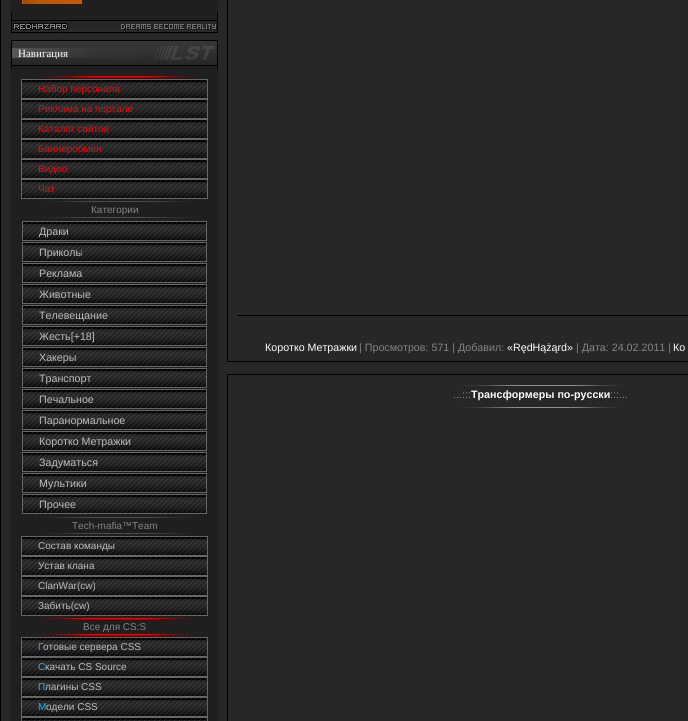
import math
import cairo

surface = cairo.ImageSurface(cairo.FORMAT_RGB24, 688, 721)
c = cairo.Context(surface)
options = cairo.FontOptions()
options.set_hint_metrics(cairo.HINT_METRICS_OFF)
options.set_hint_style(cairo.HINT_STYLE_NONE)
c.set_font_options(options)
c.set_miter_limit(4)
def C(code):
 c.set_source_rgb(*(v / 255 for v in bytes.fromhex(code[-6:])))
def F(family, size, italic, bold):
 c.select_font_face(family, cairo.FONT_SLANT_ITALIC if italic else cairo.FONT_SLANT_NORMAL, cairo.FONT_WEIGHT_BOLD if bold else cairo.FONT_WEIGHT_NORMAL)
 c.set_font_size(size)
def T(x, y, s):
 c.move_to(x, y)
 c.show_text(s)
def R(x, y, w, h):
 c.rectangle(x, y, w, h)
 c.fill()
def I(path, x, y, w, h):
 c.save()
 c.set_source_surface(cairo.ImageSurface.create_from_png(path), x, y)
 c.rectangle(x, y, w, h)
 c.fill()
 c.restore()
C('272727')
c.paint()
C('000000')
R(0,0,1,721)
C('1f1f1f')
R(11,0,207,12)
I('1.png',22,0,60,4)
I('2.png',11,12,207,21)
I('3.png',11,40,207,29)
F('Liberation Serif',11,0,0)
C('ffffff')
T(18,57,'Навигация')
C('1f1f1f')
R(11,69,207,652)
I('4.png',35,76,160,1)
I('5.png',22,80,185,18)
c.rectangle(21.5,79.5,186,19)
C('666666')
c.set_line_width(1)
c.stroke()
F('Liberation Sans',10,0,0)
C('ff0000')
T(38,92,'Набор персонала')
I('5.png',22,100,185,18)
c.rectangle(21.5,99.5,186,19)
C('666666')
c.stroke()
C('ff0000')
T(38,112,'Реклама на портале')
I('5.png',22,120,185,18)
c.rectangle(21.5,119.5,186,19)
C('666666')
c.stroke()
C('ff0000')
T(38,132,'Каталог сайтов')
I('5.png',22,140,185,18)
c.rectangle(21.5,139.5,186,19)
C('666666')
c.stroke()
C('ff0000')
T(38,152,'Баннеробмен')
I('5.png',22,160,185,18)
c.rectangle(21.5,159.5,186,19)
C('666666')
c.stroke()
C('ff0000')
T(38,172,'Видео')
I('5.png',22,180,185,18)
c.rectangle(21.5,179.5,186,19)
C('666666')
c.stroke()
C('ff0000')
T(38,192,'Чат')
I('4.png',35,201,160,1)
C('848484')
T(91,213,'Категории')
I('4.png',35,217,160,1)
I('6.png',23,222,183,18)
c.rectangle(22.5,221.5,184,19)
C('666666')
c.stroke()
F('Liberation Sans',10.7,0,0)
C('bdbdbd')
T(39,235,'Драки')
I('6.png',23,243,183,18)
c.rectangle(22.5,242.5,184,19)
C('666666')
c.stroke()
C('bdbdbd')
T(39,256,'Приколы')
I('6.png',23,264,183,18)
c.rectangle(22.5,263.5,184,19)
C('666666')
c.stroke()
C('bdbdbd')
T(39,277,'Реклама')
I('6.png',23,285,183,18)
c.rectangle(22.5,284.5,184,19)
C('666666')
c.stroke()
C('bdbdbd')
T(39,298,'Животные')
I('6.png',23,306,183,18)
c.rectangle(22.5,305.5,184,19)
C('666666')
c.stroke()
C('bdbdbd')
T(39,319,'Телевещание')
I('6.png',23,327,183,18)
c.rectangle(22.5,326.5,184,19)
C('666666')
c.stroke()
C('bdbdbd')
T(39,340,'Жесть[+18]')
I('6.png',23,348,183,18)
c.rectangle(22.5,347.5,184,19)
C('666666')
c.stroke()
C('bdbdbd')
T(39,361,'Хакеры')
I('6.png',23,369,183,18)
c.rectangle(22.5,368.5,184,19)
C('666666')
c.stroke()
C('bdbdbd')
T(39,382,'Транспорт')
I('6.png',23,390,183,18)
c.rectangle(22.5,389.5,184,19)
C('666666')
c.stroke()
C('bdbdbd')
T(39,403,'Печальное')
I('6.png',23,411,183,18)
c.rectangle(22.5,410.5,184,19)
C('666666')
c.stroke()
C('bdbdbd')
T(39,424,'Паранормальное')
I('6.png',23,432,183,18)
c.rectangle(22.5,431.5,184,19)
C('666666')
c.stroke()
C('bdbdbd')
T(39,445,'Коротко Метражки')
I('6.png',23,453,183,18)
c.rectangle(22.5,452.5,184,19)
C('666666')
c.stroke()
C('bdbdbd')
T(39,466,'Задуматься')
I('6.png',23,474,183,18)
c.rectangle(22.5,473.5,184,19)
C('666666')
c.stroke()
C('bdbdbd')
T(39,487,'Мультики')
I('6.png',23,495,183,18)
c.rectangle(22.5,494.5,184,19)
C('666666')
c.stroke()
C('bdbdbd')
T(39,508,'Прочее')
I('4.png',35,517,160,1)
F('Liberation Sans',10,0,0)
C('848484')
T(72,529,'Tech-mafia™Team')
I('4.png',35,533,160,1)
I('5.png',22,537,185,18)
c.rectangle(21.5,536.5,186,19)
C('666666')
c.stroke()
C('bdbdbd')
T(38,549,'Состав команды')
I('5.png',22,557,185,18)
c.rectangle(21.5,556.5,186,19)
C('666666')
c.stroke()
C('bdbdbd')
T(38,569,'Устав клана')
I('5.png',22,577,185,18)
c.rectangle(21.5,576.5,186,19)
C('666666')
c.stroke()
C('bdbdbd')
T(38,589,'ClanWar(cw)')
I('5.png',22,597,185,18)
c.rectangle(21.5,596.5,186,19)
C('666666')
c.stroke()
C('bdbdbd')
T(38,609,'Забить(cw)')
I('4.png',35,618,160,1)
C('848484')
T(83,630,'Все для CS:S')
I('4.png',35,634,160,1)
I('5.png',22,638,185,18)
c.rectangle(21.5,637.5,186,19)
C('666666')
c.stroke()
C('00bfff')
T(38,650,'Г')
C('bdbdbd')
T(43,650,'отовые сервера CSS')
I('5.png',22,658,185,18)
c.rectangle(21.5,657.5,186,19)
C('666666')
c.stroke()
C('00bfff')
T(38,670,'C')
C('bdbdbd')
T(45,670,'качать CS Source')
I('5.png',22,678,185,18)
c.rectangle(21.5,677.5,186,19)
C('666666')
c.stroke()
C('00bfff')
T(38,690,'П')
C('bdbdbd')
T(45,690,'лагины CSS')
I('5.png',22,698,185,18)
c.rectangle(21.5,697.5,186,19)
C('666666')
c.stroke()
C('00bfff')
T(38,710,'М')
C('bdbdbd')
T(46,710,'одели CSS')
I('7.png',22,718,185,3)
c.rectangle(21.5,717.5,186,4)
C('666666')
c.stroke()
c.rectangle(227.5,-.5,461,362)
C('000000')
c.stroke()
R(237,315,451,1)
F('Liberation Sans',10.7,0,0)
C('ffffff')
T(265,351,'Коротко Метражки')
C('848484')
T(359,351,'| Просмотров: 571 | Добавил:')
C('ffffff')
T(507,351,'«RędHążąrd»')
C('848484')
T(576,351,'| Дата: 24.02.2011 |')
C('ffffff')
T(673,351,'Ко')
c.rectangle(227.5,374.5,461,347)
C('000000')
c.stroke()
I('8.png',461,385,160,1)
C('848484')
T(453,398,'...:::')
F('Liberation Sans',10.7,0,1)
C('ffffff')
T(471,398,'Трансформеры по-русски')
F('Liberation Sans',10.7,0,0)
C('848484')
T(610,398,':::...')
I('8.png',459,407,160,1)
surface.write_to_png('o.png')
